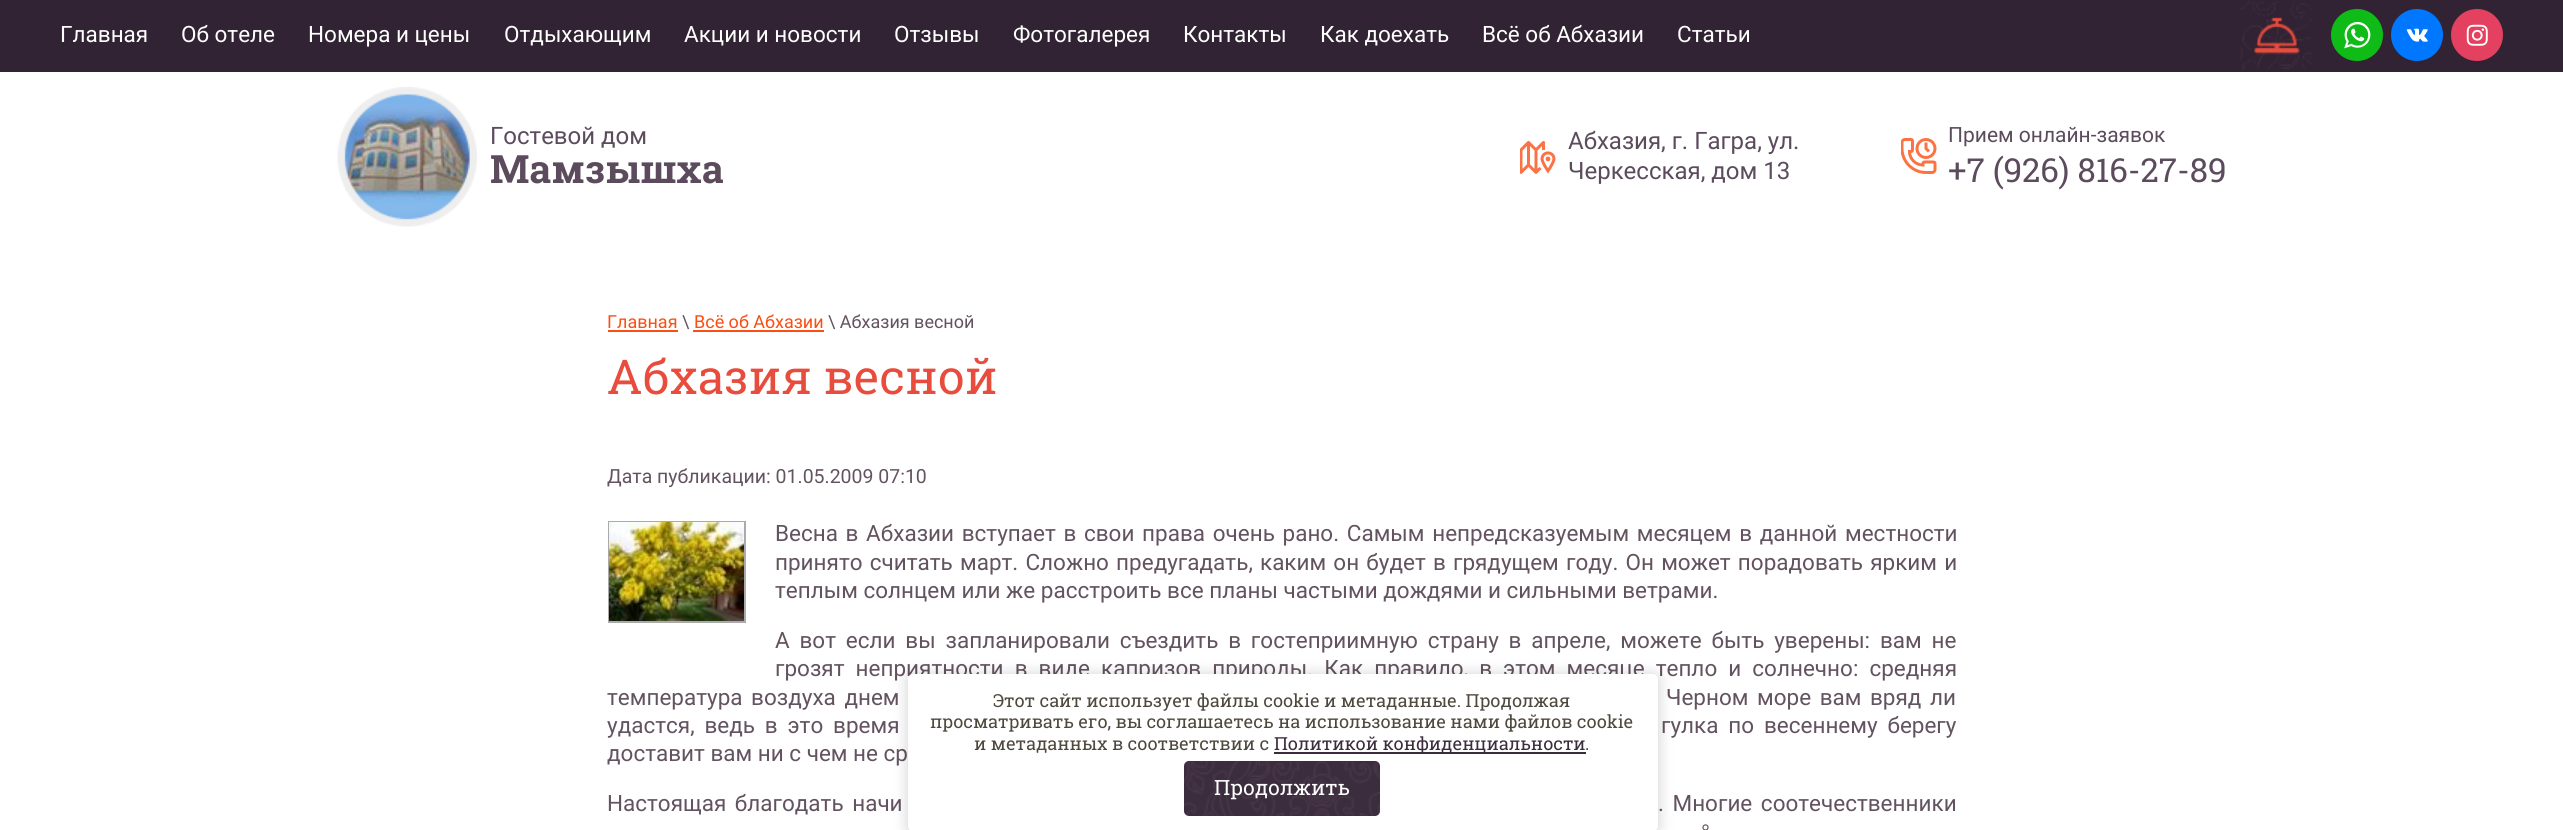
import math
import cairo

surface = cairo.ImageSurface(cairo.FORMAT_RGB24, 2563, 830)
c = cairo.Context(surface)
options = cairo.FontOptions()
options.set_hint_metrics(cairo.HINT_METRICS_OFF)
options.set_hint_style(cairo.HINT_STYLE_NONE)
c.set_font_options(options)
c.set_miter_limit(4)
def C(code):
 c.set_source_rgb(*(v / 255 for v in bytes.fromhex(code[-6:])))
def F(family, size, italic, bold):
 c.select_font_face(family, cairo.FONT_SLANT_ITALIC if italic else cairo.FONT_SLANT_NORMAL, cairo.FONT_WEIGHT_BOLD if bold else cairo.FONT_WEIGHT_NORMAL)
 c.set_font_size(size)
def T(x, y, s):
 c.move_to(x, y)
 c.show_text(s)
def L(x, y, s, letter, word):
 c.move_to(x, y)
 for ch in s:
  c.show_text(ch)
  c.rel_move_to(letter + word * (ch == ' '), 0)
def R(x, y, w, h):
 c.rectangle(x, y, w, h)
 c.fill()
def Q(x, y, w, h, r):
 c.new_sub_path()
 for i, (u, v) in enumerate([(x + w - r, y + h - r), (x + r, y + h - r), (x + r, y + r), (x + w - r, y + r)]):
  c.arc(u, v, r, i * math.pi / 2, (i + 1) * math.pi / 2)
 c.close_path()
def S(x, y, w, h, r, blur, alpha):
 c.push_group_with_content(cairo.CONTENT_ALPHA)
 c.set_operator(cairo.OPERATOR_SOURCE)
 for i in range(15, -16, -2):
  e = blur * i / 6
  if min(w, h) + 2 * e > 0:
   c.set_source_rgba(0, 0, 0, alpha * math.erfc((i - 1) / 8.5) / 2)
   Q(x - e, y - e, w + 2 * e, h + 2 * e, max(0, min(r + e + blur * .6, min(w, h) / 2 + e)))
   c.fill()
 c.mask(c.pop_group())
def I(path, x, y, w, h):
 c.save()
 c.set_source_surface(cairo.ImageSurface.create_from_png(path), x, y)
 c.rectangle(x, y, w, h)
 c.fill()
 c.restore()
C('ffffff')
c.paint()
C('312333')
R(0,0,2563,72)
F('Roboto',22.5,0,0)
C('ffffff')
T(60,42,'Главная')
T(181,42,'Об отеле')
T(308,42,'Номера и цены')
T(504,42,'Отдыхающим')
T(684,42,'Акции и новости')
T(894,42,'Отзывы')
T(1013,42,'Фотогалерея')
T(1183,42,'Контакты')
T(1320,42,'Как доехать')
T(1482,42,'Всё об Абхазии')
T(1677,42,'Статьи')
I('1.png',2240,1,72,68)
I('2.png',2331,9,52,52)
I('3.png',2391,9,52,52)
I('4.png',2451,9,52,52)
I('5.png',337,87,140,140)
F('Roboto',24,0,0)
C('5b4b5d')
T(490,144,'Гостевой дом')
F('Roboto Slab',39,0,1)
T(490,183,'Мамзышха')
I('6.png',1520,140,36,34)
F('Roboto',24,0,0)
T(1568,149,'Абхазия, г. Гагра, ул.')
T(1568,179,'Черкесская, дом 13')
I('7.png',1901,138,36,36)
F('Roboto',21,0,0)
T(1948,142,'Прием онлайн-заявок')
F('Roboto Slab',33,0,0)
T(1948,182,'+7 (926) 816-27-89')
F('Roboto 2',18,0,0)
C('fa4e12')
T(607,328,'Главная')
R(608,330,70,2)
C('635360')
T(682,328,'\\')
C('fa4e12')
T(694,328,'Всё об Абхазии')
R(693,330,131,2)
C('635360')
T(828,328,'\\ Абхазия весной')
F('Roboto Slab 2',48,0,0)
C('e84c3d')
T(607,394,'Абхазия весной')
F('Roboto 2',19.5,0,0)
C('635360')
T(607,483,'Дата публикации: 01.05.2009 07:10')
c.rectangle(609,522,136,100)
C('aaaaaa')
c.stroke()
I('8.png',609,522,135,99)
F('Roboto 2',22.5,0,0)
C('635360')
L(775,541,'Весна в Абхазии вступает в свои права очень рано. Самым непредсказуемым месяцем в данной местности',0,2.1)
L(775,570,'принято считать март. Сложно предугадать, каким он будет в грядущем году. Он может порадовать ярким и',0,1.6)
T(775,598,'теплым солнцем или же расстроить все планы частыми дождями и сильными ветрами.')
L(775,648,'А вот если вы запланировали съездить в гостеприимную страну в апреле, можете быть уверены: вам не',0,4.25)
L(775,676,'грозят неприятности в виде капризов природы. Как правило, в этом месяце тепло и солнечно: средняя',0,5.5)
L(607,705,'температура воздуха днем',0,3)
L(1666,705,'Черном море вам вряд ли',0,3)
L(607,733,'удастся, ведь в это время',0,4.25)
L(1661,733,'гулка по весеннему берегу',0,4.25)
T(607,761,'доставит вам ни с чем не ср')
L(607,811,'Настоящая благодать начи',0,3)
L(1658,811,'. Многие соотечественники',0,3)
F('Liberation Sans',22.5,0,0)
T(1701,840,'°')
C('000000')
S(908,675,750,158,5,7.5,.2)
C('ffffff')
Q(908,674,750,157,5)
c.fill()
F('Roboto Slab 2',18,0,0)
C('4e483d')
T(993,707,'Этот сайт использует файлы cookie и метаданные. Продолжая')
T(930,728,'просматривать его, вы соглашаетесь на использование нами файлов cookie')
T(974,750,'и метаданных в соответствии с')
C('3c2d3e')
R(1274,752,312,2)
T(1274,750,'Политикой конфиденциальности')
C('4e483d')
T(1585,750,'.')
C('3c2d3e')
Q(1184,761,196,55,5)
c.fill()
I('9.png',1184,761,196,55)
F('Roboto Slab 2',21,0,0)
C('ffffff')
T(1214,795,'Продолжить')
surface.write_to_png('o.png')
